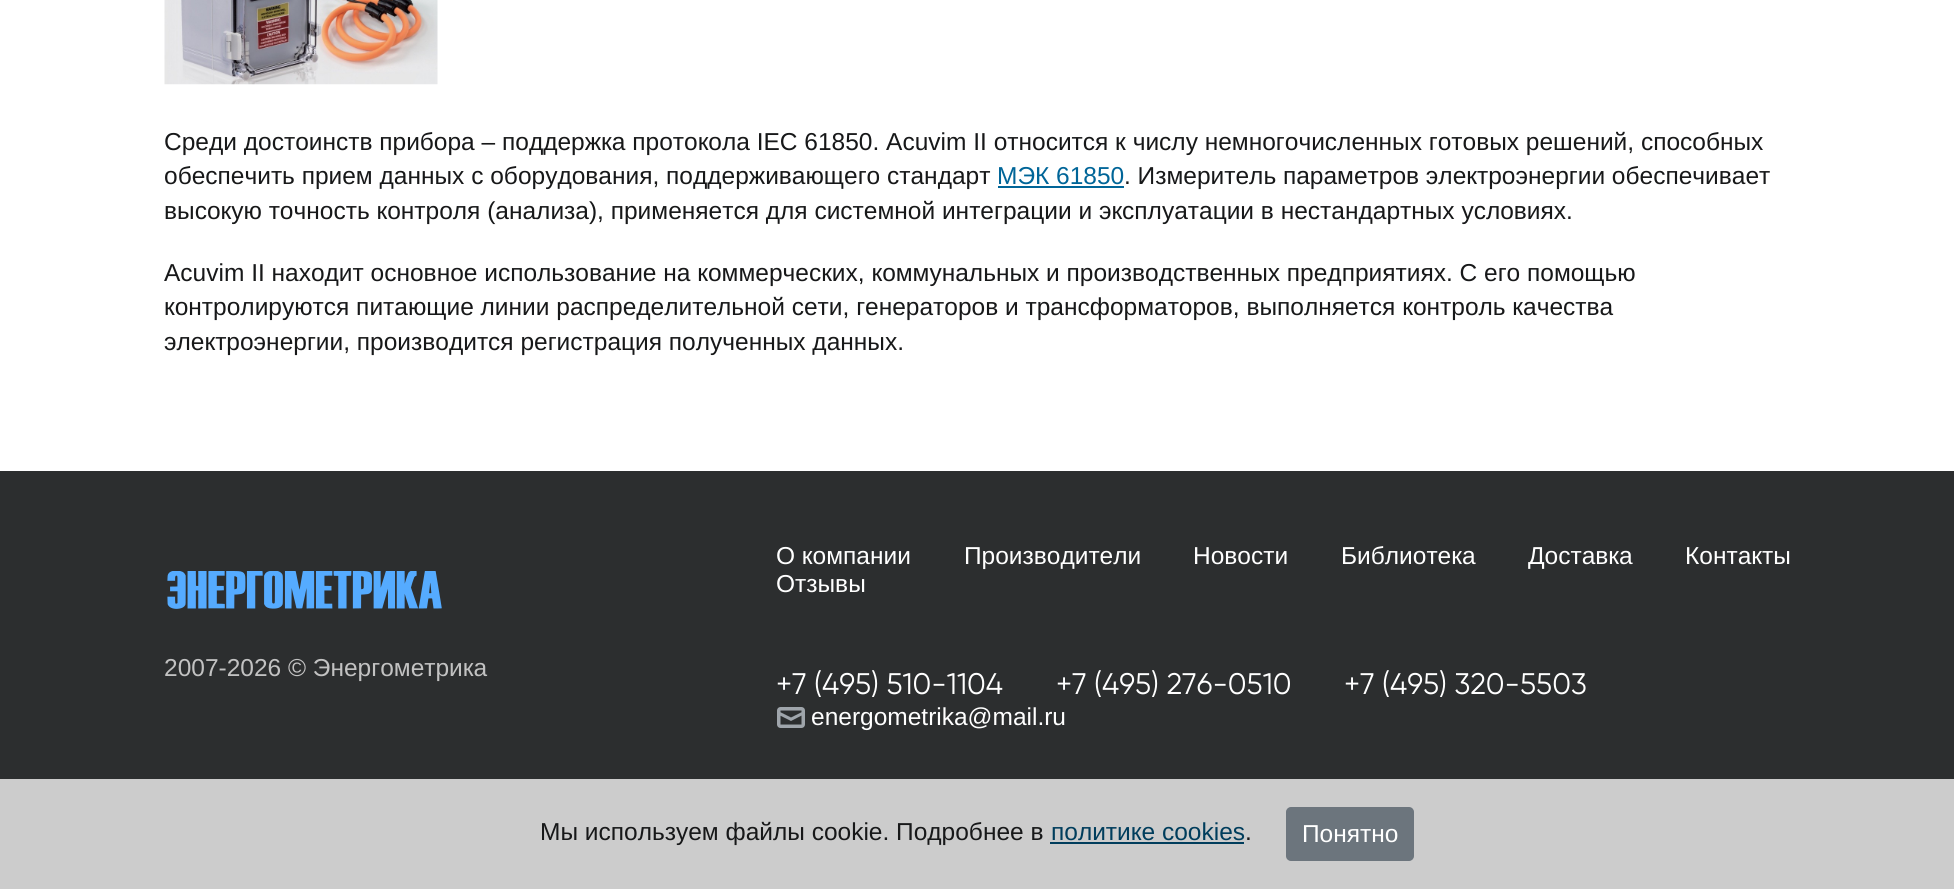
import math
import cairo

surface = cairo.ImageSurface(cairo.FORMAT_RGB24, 1954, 889)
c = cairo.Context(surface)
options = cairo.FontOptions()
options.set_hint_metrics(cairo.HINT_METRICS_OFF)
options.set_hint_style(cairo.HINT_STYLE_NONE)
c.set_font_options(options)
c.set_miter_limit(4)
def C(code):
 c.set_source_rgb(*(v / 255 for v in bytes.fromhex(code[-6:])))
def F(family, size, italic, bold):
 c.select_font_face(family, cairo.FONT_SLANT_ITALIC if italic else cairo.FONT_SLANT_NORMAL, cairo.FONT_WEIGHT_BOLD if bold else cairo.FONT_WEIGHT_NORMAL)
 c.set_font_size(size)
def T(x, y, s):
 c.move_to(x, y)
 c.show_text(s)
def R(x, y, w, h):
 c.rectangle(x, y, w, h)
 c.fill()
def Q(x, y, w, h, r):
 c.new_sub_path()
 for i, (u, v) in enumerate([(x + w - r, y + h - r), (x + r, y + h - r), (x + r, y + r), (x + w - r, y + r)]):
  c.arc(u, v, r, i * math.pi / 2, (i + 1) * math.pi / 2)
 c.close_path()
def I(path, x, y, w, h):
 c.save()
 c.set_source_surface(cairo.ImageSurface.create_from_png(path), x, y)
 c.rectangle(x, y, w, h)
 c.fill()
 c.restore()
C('ffffff')
c.paint()
I('1.png',164,0,274,85)
F('Liberation Sans',24.5,0,0)
C('171819')
T(164,150,'Среди достоинств прибора – поддержка протокола IEC 61850. Acuvim II относится к числу немногочисленных готовых решений, способных')
T(164,184,'обеспечить прием данных с оборудования, поддерживающего стандарт')
C('006598')
T(997,184,'МЭК 61850')
R(998,186,126,2)
C('171819')
T(1124,184,'. Измеритель параметров электроэнергии обеспечивает')
T(164,219,'высокую точность контроля (анализа), применяется для системной интеграции и эксплуатации в нестандартных условиях.')
T(164,281,'Acuvim II находит основное использование на коммерческих, коммунальных и производственных предприятиях. С его помощью')
T(164,315,'контролируются питающие линии распределительной сети, генераторов и трансформаторов, выполняется контроль качества')
T(164,350,'электроэнергии, производится регистрация полученных данных.')
C('2c2e2f')
R(0,471,1954,308)
I('2.png',167,571,275,38)
C('c2c2c2')
T(164,676,'2007-2026 © Энергометрика')
C('ffffff')
T(776,564,'О компании')
T(964,564,'Производители')
T(1193,564,'Новости')
T(1341,564,'Библиотека')
T(1528,564,'Доставка')
T(1685,564,'Контакты')
T(776,592,'Отзывы')
F('Gilroy',29.75,0,0)
T(776,694,'+7 (495) 510-1104')
T(1056,694,'+7 (495) 276-0510')
T(1344,694,'+7 (495) 320-5503')
I('3.png',777,707,28,21)
F('Liberation Sans',24.5,0,0)
T(811,725,'energometrika@mail.ru')
C('cccccc')
R(0,779,1954,110)
C('171819')
T(540,840,'Мы используем файлы cookie. Подробнее в')
C('003d5c')
T(1051,840,'политике cookies')
R(1050,842,194,2)
C('171819')
T(1245,840,'.')
C('6c757d')
Q(1287,808,126,52,4)
c.fill_preserve()
c.stroke()
C('ffffff')
T(1302,842,'Понятно')
surface.write_to_png('o.png')
